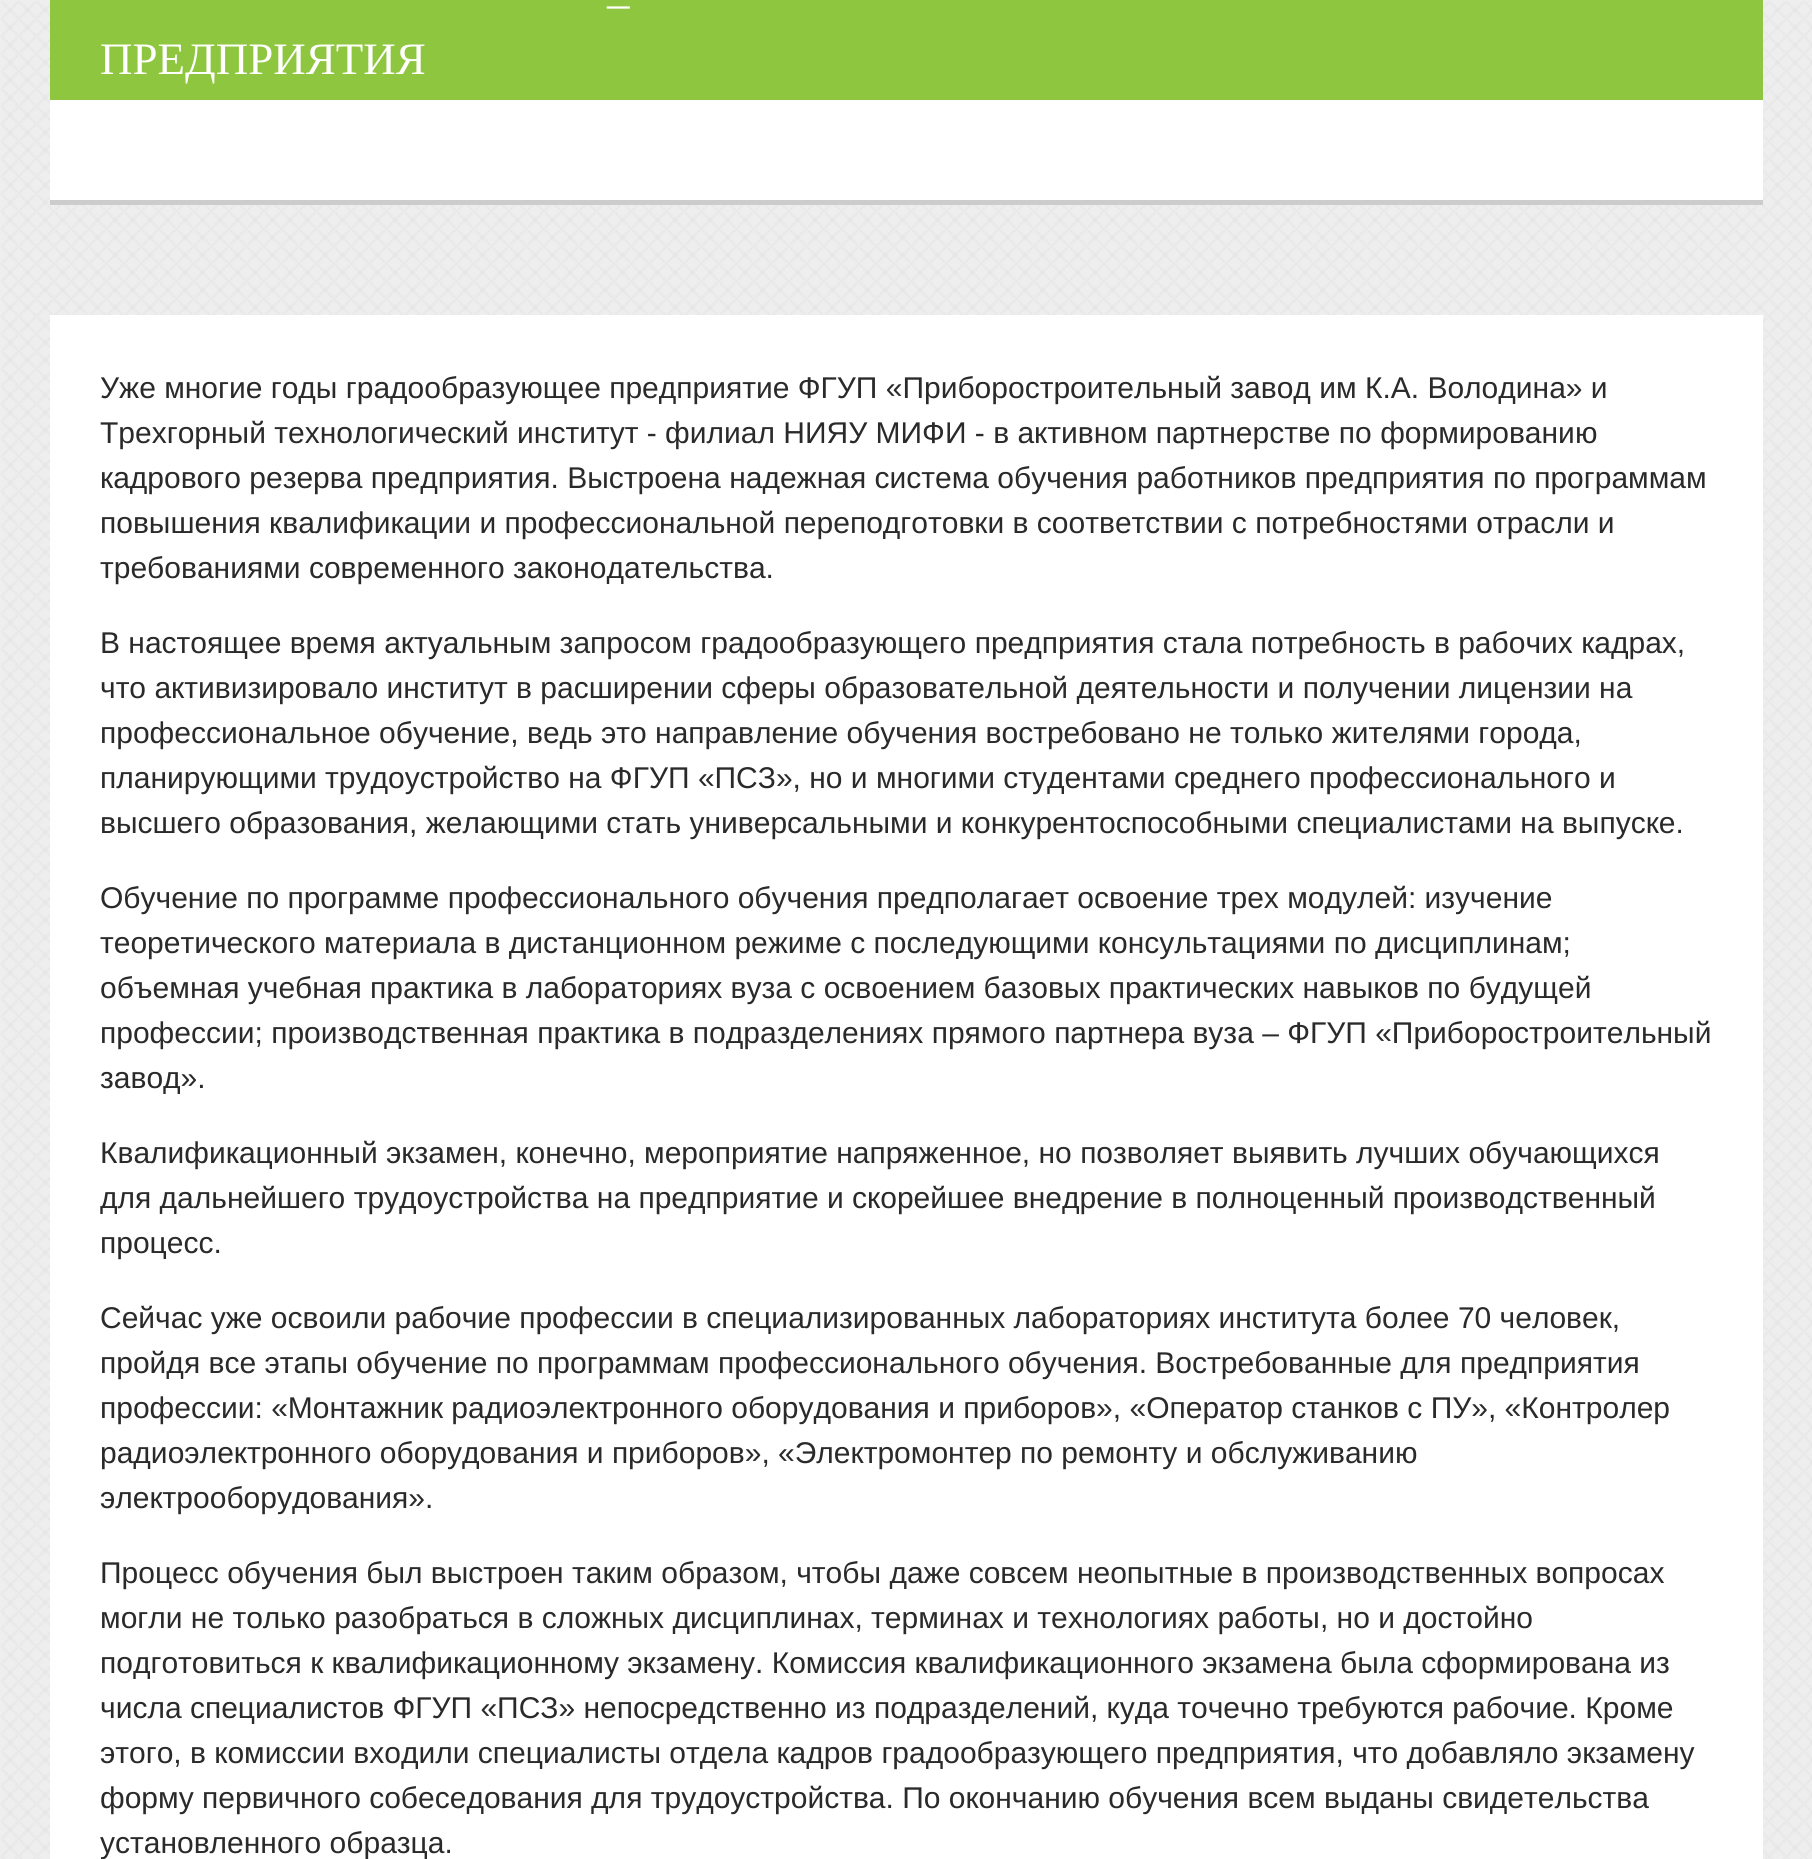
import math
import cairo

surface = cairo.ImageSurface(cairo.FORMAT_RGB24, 1812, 1859)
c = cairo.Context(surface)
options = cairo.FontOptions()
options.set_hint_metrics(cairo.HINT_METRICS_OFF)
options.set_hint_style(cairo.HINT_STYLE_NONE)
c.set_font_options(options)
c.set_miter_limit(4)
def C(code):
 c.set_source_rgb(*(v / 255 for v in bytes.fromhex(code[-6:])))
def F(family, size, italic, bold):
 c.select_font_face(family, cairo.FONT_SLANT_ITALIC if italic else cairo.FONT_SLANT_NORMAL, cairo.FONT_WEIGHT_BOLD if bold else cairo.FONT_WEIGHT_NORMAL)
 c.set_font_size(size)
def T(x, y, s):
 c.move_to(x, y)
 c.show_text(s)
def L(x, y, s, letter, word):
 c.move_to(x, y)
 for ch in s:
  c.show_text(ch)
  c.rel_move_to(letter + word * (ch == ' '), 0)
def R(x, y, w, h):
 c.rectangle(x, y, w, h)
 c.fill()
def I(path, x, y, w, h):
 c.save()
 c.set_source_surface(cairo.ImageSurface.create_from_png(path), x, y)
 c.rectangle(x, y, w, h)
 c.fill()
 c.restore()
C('eeeeee')
c.paint()
I('1.png',1,1,1811,1858)
C('ffffff')
R(50,100,1713,100)
C('cccccc')
R(50,200,1713,5)
C('8ec63f')
R(50,0,1713,100)
F('Liberation Serif',45,0,0)
C('ffffff')
L(607,18,'–',0,1)
T(100,74,'ПРЕДПРИЯТИЯ')
R(50,315,1713,1544)
F('Liberation Sans',30,0,0)
C('2a2a2a')
T(100,398,'Уже многие годы градообразующее предприятие ФГУП «Приборостроительный завод им К.А. Володина» и')
T(100,443,'Трехгорный технологический институт - филиал НИЯУ МИФИ - в активном партнерстве по формированию')
T(100,488,'кадрового резерва предприятия. Выстроена надежная система обучения работников предприятия по программам')
T(100,533,'повышения квалификации и профессиональной переподготовки в соответствии с потребностями отрасли и')
T(100,578,'требованиями современного законодательства.')
T(100,653,'В настоящее время актуальным запросом градообразующего предприятия стала потребность в рабочих кадрах,')
T(100,698,'что активизировало институт в расширении сферы образовательной деятельности и получении лицензии на')
T(100,743,'профессиональное обучение, ведь это направление обучения востребовано не только жителями города,')
T(100,788,'планирующими трудоустройство на ФГУП «ПСЗ», но и многими студентами среднего профессионального и')
T(100,833,'высшего образования, желающими стать универсальными и конкурентоспособными специалистами на выпуске.')
T(100,908,'Обучение по программе профессионального обучения предполагает освоение трех модулей: изучение')
T(100,953,'теоретического материала в дистанционном режиме с последующими консультациями по дисциплинам;')
T(100,998,'объемная учебная практика в лабораториях вуза с освоением базовых практических навыков по будущей')
T(100,1043,'профессии; производственная практика в подразделениях прямого партнера вуза – ФГУП «Приборостроительный')
T(100,1088,'завод».')
T(100,1163,'Квалификационный экзамен, конечно, мероприятие напряженное, но позволяет выявить лучших обучающихся')
T(100,1208,'для дальнейшего трудоустройства на предприятие и скорейшее внедрение в полноценный производственный')
T(100,1253,'процесс.')
T(100,1328,'Сейчас уже освоили рабочие профессии в специализированных лабораториях института более 70 человек,')
T(100,1373,'пройдя все этапы обучение по программам профессионального обучения. Востребованные для предприятия')
T(100,1418,'профессии: «Монтажник радиоэлектронного оборудования и приборов», «Оператор станков с ПУ», «Контролер')
T(100,1463,'радиоэлектронного оборудования и приборов», «Электромонтер по ремонту и обслуживанию')
T(100,1508,'электрооборудования».')
T(100,1583,'Процесс обучения был выстроен таким образом, чтобы даже совсем неопытные в производственных вопросах')
T(100,1628,'могли не только разобраться в сложных дисциплинах, терминах и технологиях работы, но и достойно')
T(100,1673,'подготовиться к квалификационному экзамену. Комиссия квалификационного экзамена была сформирована из')
T(100,1718,'числа специалистов ФГУП «ПСЗ» непосредственно из подразделений, куда точечно требуются рабочие. Кроме')
T(100,1763,'этого, в комиссии входили специалисты отдела кадров градообразующего предприятия, что добавляло экзамену')
T(100,1808,'форму первичного собеседования для трудоустройства. По окончанию обучения всем выданы свидетельства')
T(100,1853,'установленного образца.')
surface.write_to_png('o.png')
